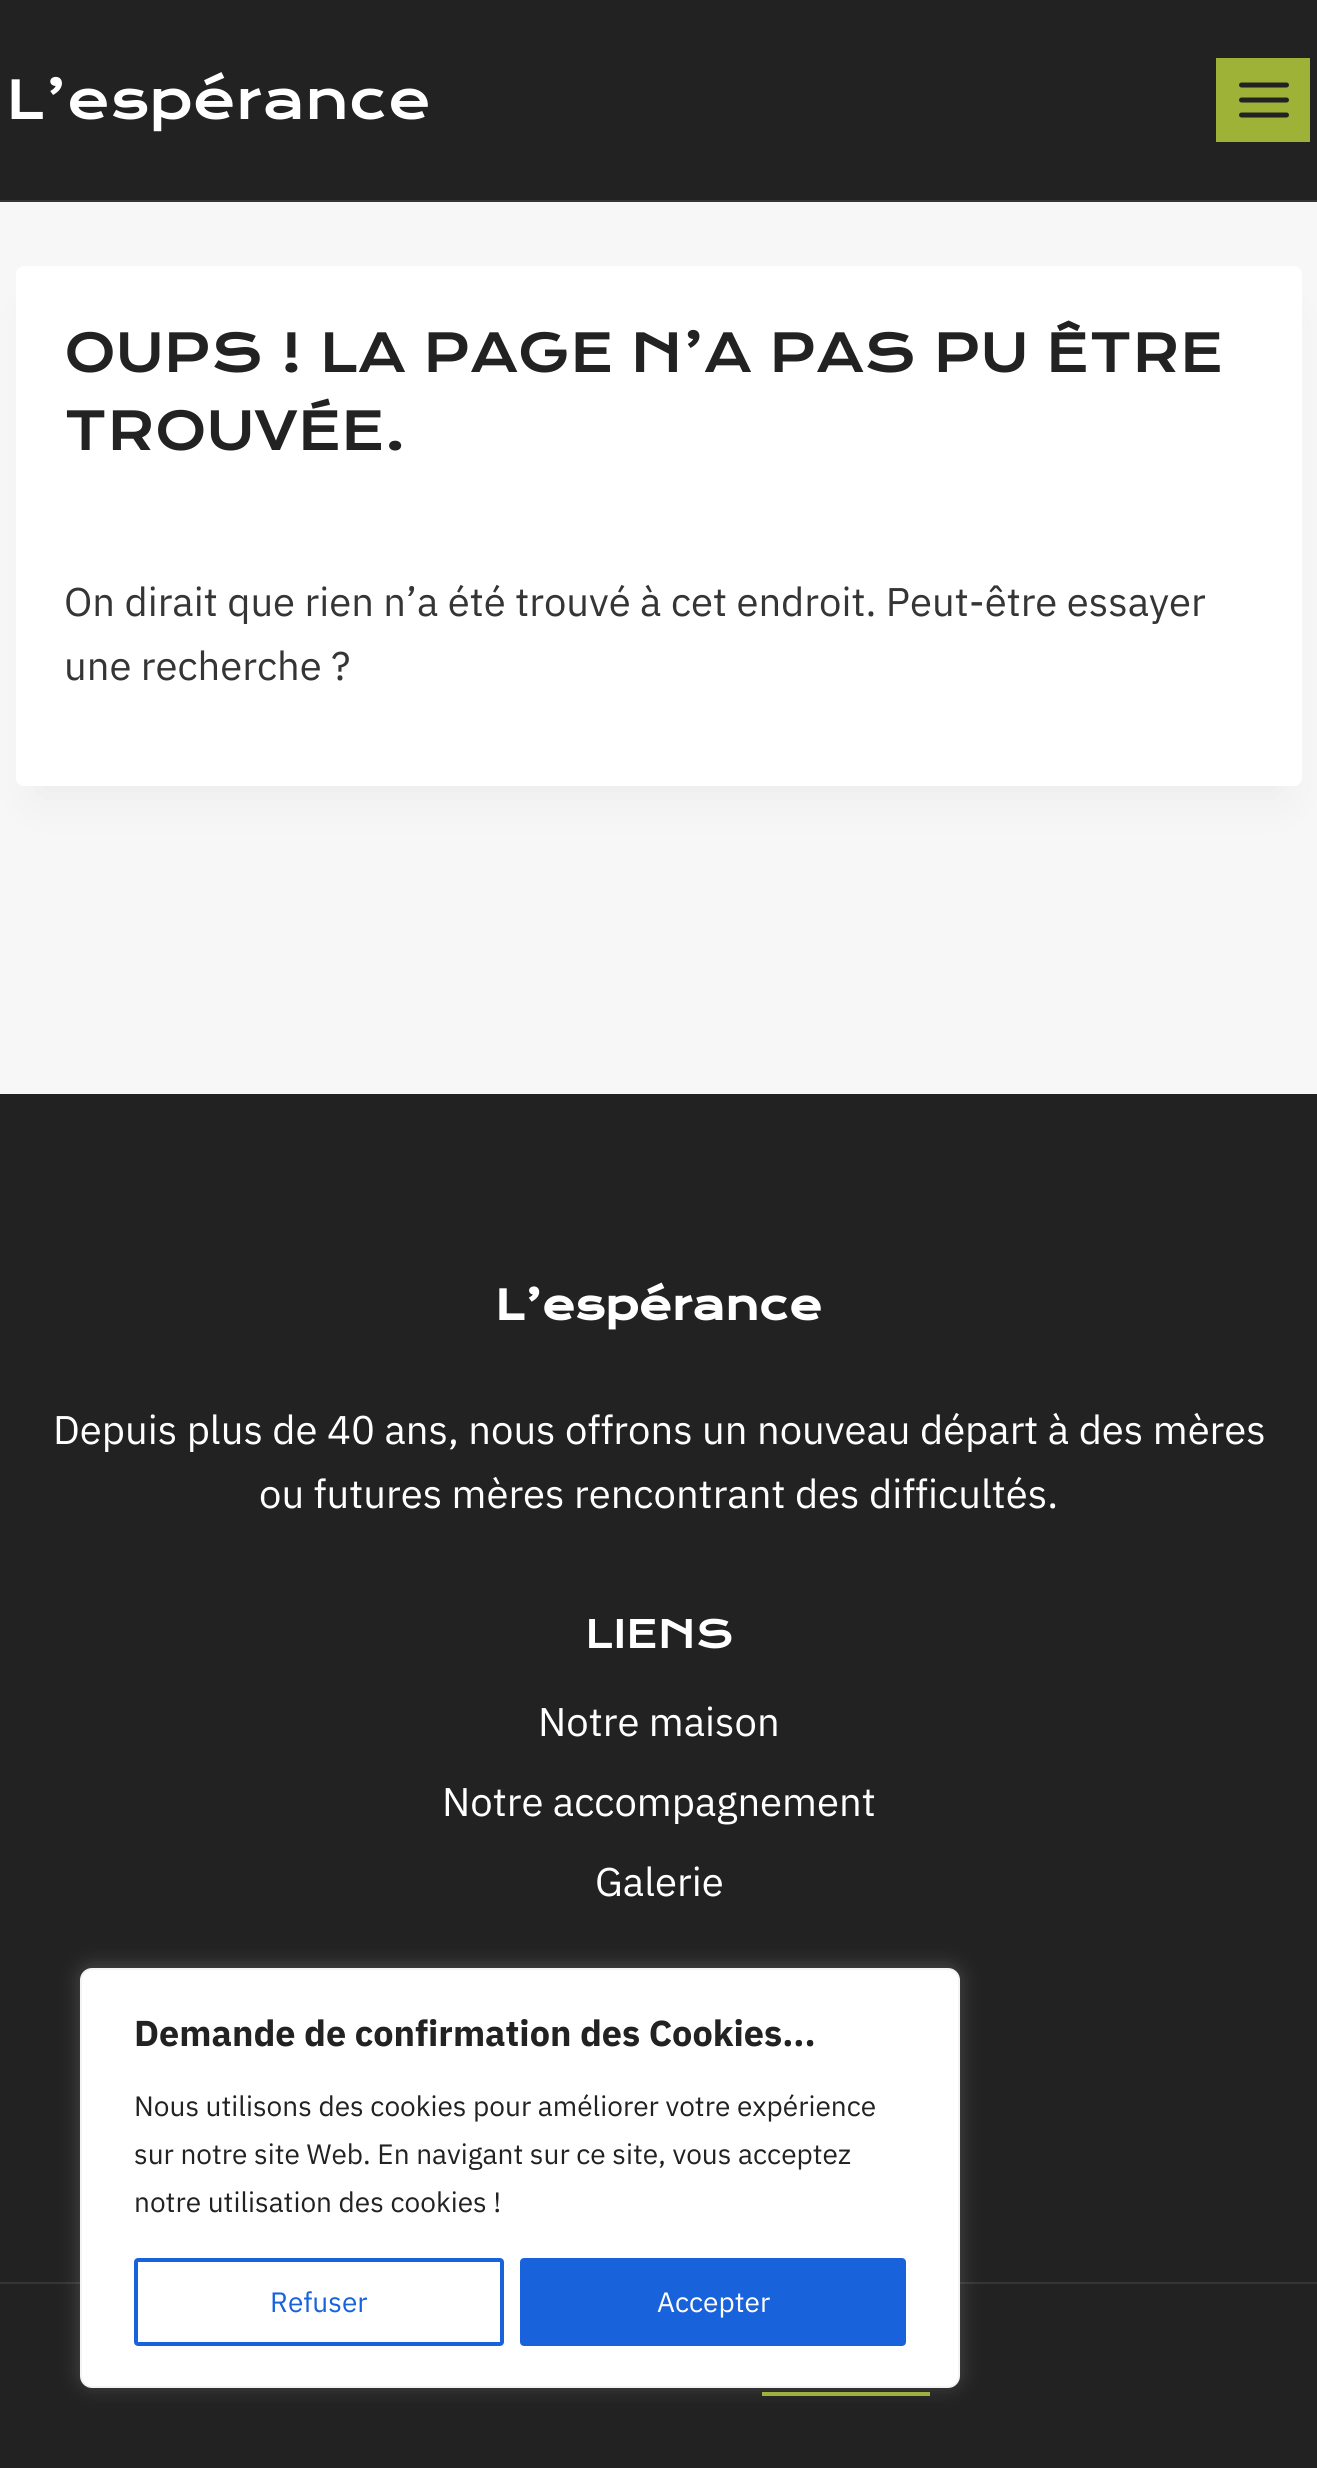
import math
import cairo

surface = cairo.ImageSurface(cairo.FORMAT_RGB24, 1317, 2468)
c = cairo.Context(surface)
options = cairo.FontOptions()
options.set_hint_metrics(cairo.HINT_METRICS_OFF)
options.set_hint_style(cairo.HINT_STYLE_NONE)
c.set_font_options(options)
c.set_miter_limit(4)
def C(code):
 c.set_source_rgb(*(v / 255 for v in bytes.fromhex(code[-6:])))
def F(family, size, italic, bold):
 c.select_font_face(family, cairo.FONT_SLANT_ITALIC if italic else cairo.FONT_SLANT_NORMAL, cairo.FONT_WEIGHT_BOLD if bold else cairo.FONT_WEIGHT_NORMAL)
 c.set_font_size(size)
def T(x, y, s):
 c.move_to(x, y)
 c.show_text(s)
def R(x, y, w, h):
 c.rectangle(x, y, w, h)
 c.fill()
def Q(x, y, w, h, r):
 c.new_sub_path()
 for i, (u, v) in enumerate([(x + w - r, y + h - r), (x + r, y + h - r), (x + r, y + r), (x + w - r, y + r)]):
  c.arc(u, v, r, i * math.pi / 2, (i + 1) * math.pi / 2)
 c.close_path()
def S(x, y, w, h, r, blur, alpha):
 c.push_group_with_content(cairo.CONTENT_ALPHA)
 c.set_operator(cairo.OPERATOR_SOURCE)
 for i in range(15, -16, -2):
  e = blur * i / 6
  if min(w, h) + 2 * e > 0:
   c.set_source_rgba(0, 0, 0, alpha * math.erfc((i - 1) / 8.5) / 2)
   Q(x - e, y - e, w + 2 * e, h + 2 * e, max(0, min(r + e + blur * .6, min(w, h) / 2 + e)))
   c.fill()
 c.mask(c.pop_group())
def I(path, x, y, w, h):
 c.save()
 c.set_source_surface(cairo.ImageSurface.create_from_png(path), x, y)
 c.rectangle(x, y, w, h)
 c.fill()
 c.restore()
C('f7f7f7')
c.paint()
C('222222')
R(0,0,1317,200)
C('353535')
R(0,200,1317,2)
F('Krona One',52,0,0)
C('ffffff')
T(6,119,'L’espérance')
C('9eb237')
R(1216,58,94,84)
I('1.png',1239,82,50,36)
C('000000')
S(36,316,1246,480,0,25,.05)
C('ffffff')
Q(16,266,1286,520,8)
c.fill()
C('222222')
T(64,372,'OUPS ! LA PAGE N’A PAS PU ÊTRE')
T(64,450,'TROUVÉE.')
F('IBM Plex Sans',40,0,0)
C('353535')
T(64,616,'On dirait que rien n’a été trouvé à cet endroit. Peut-être essayer')
T(64,680,'une recherche ?')
C('222222')
R(0,1094,1317,1374)
F('Krona One',40,0,1)
C('ffffff')
T(495,1320,'L’espérance')
F('IBM Plex Sans',40,0,0)
T(53,1444,'Depuis plus de 40 ans, nous offrons un nouveau départ à des mères')
T(259,1508,'ou futures mères rencontrant des difficultés.')
F('Krona One',38,0,0)
T(585,1648,'LIENS')
F('IBM Plex Sans',40,0,0)
T(538,1736,'Notre maison')
T(442,1816,'Notre accompagnement')
T(595,1896,'Galerie')
C('353535')
R(0,2282,1317,2)
C('9eb237')
R(762,2392,168,4)
C('acabab')
S(80,1966,880,420,12,10,.3)
C('ffffff')
Q(81,1969,878,418,11)
c.fill_preserve()
C('f4f4f4')
c.stroke()
F('IBM Plex Sans',36,0,1)
C('222222')
T(134,2046,'Demande de confirmation des Cookies...')
F('IBM Plex Sans',28,0,0)
T(134,2116,'Nous utilisons des cookies pour améliorer votre expérience')
T(134,2164,'sur notre site Web. En navigant sur ce site, vous acceptez')
T(134,2212,'notre utilisation des cookies !')
Q(136,2260,366,84,2)
C('1863dc')
c.set_line_width(4)
c.stroke()
T(270,2312,'Refuser')
Q(522,2260,382,84,2)
c.fill_preserve()
c.stroke()
C('ffffff')
T(657,2312,'Accepter')
surface.write_to_png('o.png')
